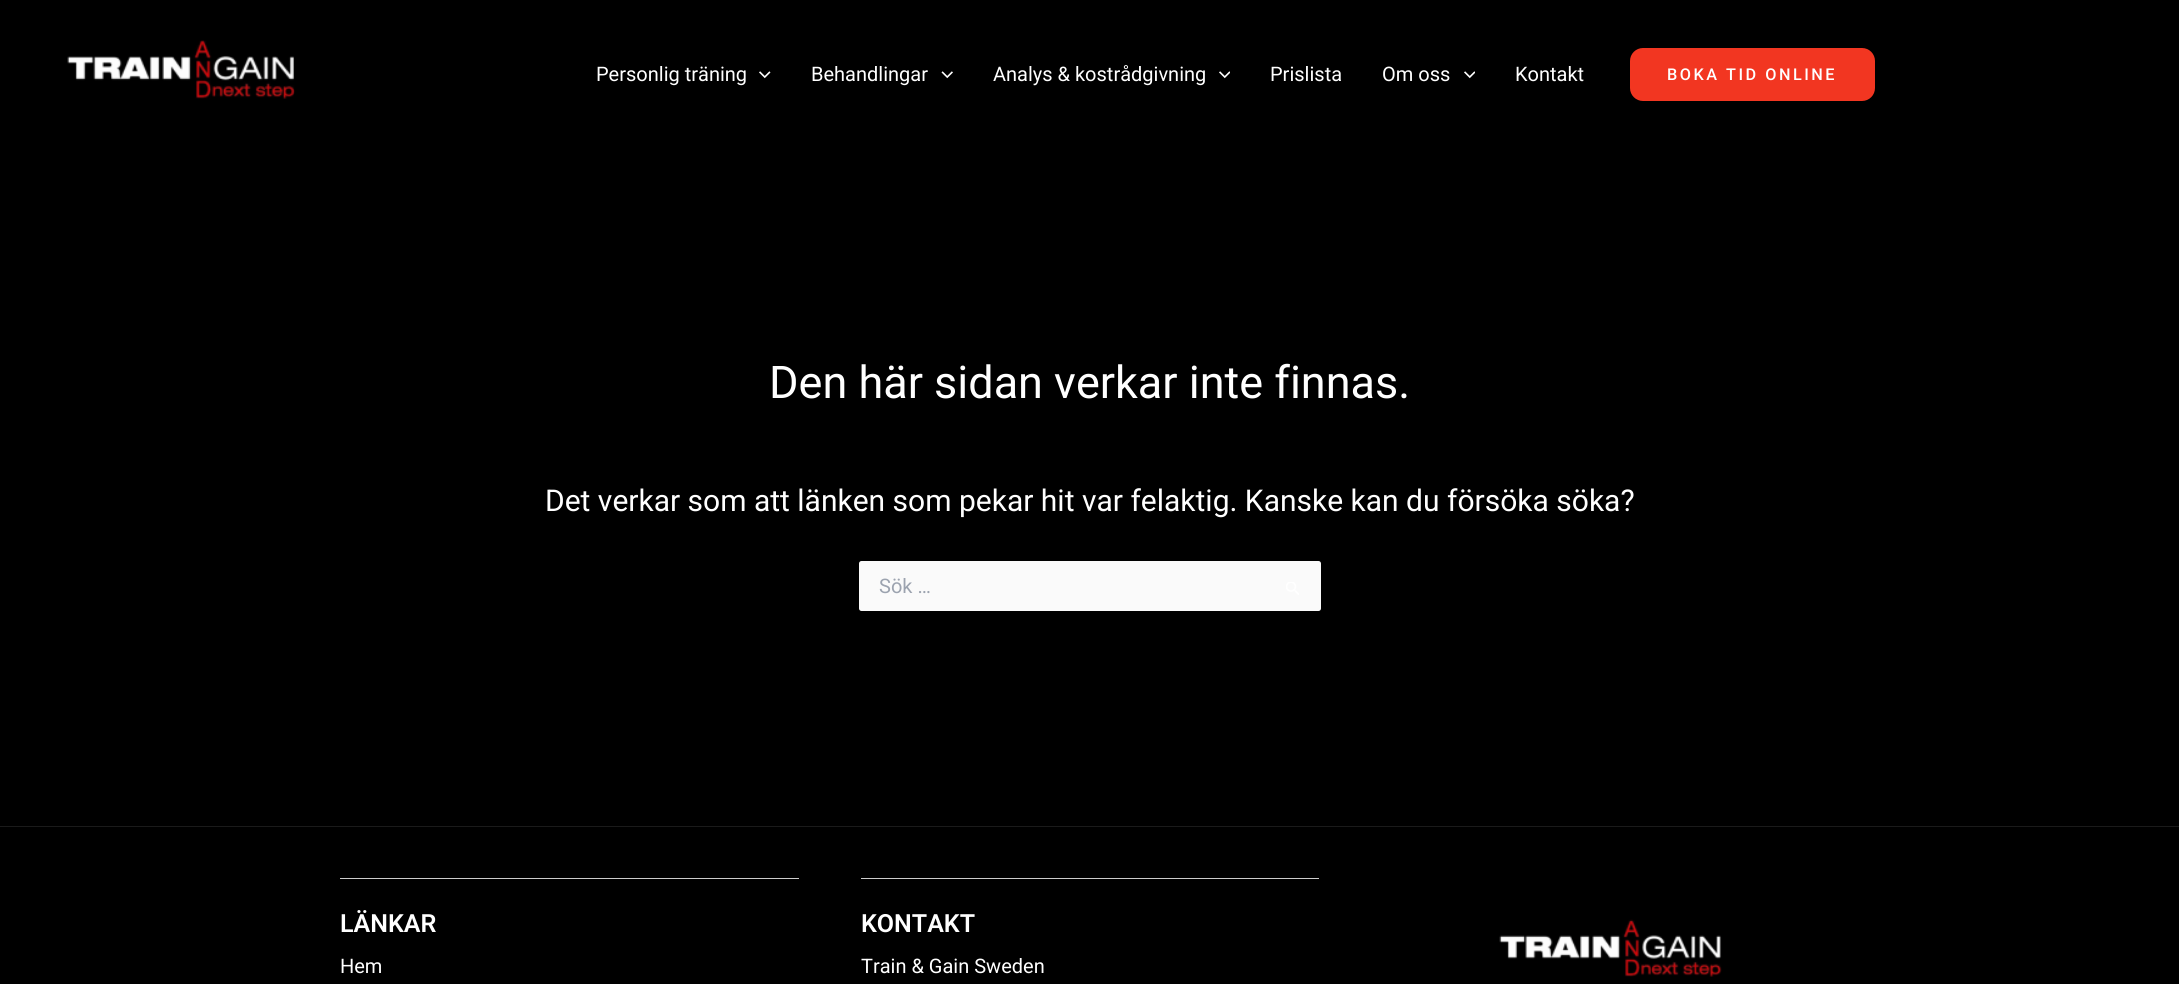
import math
import cairo

surface = cairo.ImageSurface(cairo.FORMAT_RGB24, 2179, 984)
c = cairo.Context(surface)
options = cairo.FontOptions()
options.set_hint_metrics(cairo.HINT_METRICS_OFF)
options.set_hint_style(cairo.HINT_STYLE_NONE)
c.set_font_options(options)
c.set_miter_limit(4)
def C(code):
 c.set_source_rgb(*(v / 255 for v in bytes.fromhex(code[-6:])))
def F(family, size, italic, bold):
 c.select_font_face(family, cairo.FONT_SLANT_ITALIC if italic else cairo.FONT_SLANT_NORMAL, cairo.FONT_WEIGHT_BOLD if bold else cairo.FONT_WEIGHT_NORMAL)
 c.set_font_size(size)
def T(x, y, s):
 c.move_to(x, y)
 c.show_text(s)
def L(x, y, s, letter, word):
 c.move_to(x, y)
 for ch in s:
  c.show_text(ch)
  c.rel_move_to(letter + word * (ch == ' '), 0)
def R(x, y, w, h):
 c.rectangle(x, y, w, h)
 c.fill()
def Q(x, y, w, h, r):
 c.new_sub_path()
 for i, (u, v) in enumerate([(x + w - r, y + h - r), (x + r, y + h - r), (x + r, y + r), (x + w - r, y + r)]):
  c.arc(u, v, r, i * math.pi / 2, (i + 1) * math.pi / 2)
 c.close_path()
def I(path, x, y, w, h):
 c.save()
 c.set_source_surface(cairo.ImageSurface.create_from_png(path), x, y)
 c.rectangle(x, y, w, h)
 c.fill()
 c.restore()
C('000000')
c.paint()
I('1.png',67,40,228,59)
F('Roboto',20,0,0)
C('ffffff')
T(596,81,'Personlig träning')
I('2.png',759,71,12,8)
T(811,81,'Behandlingar')
I('3.png',941,71,12,8)
T(993,81,'Analys & kostrådgivning')
I('4.png',1219,71,11,8)
T(1270,81,'Prislista')
T(1382,81,'Om oss')
I('4.png',1464,71,11,8)
T(1515,81,'Kontakt')
C('f23621')
Q(1630,48,245,53,13)
c.fill()
F('Roboto Medium',16.25,0,0)
C('ffffff')
L(1667,80,'BOKA TID ONLINE',2.5,0)
F('Roboto',45,0,0)
T(769,398,'Den här sidan verkar inte finnas.')
F('Roboto',30,0,0)
T(545,511,'Det verkar som att länken som pekar hit var felaktig. Kanske kan du försöka söka?')
C('fafafa')
Q(859,561,462,50,2.5)
c.fill()
F('Roboto',20,0,0)
C('9ca3af')
T(879,593,'Sök …')
I('5.png',1286,582,13,13)
C('1a1a1a')
R(0,826,2179,1)
C('cccccc')
R(340,878,459,1)
F('Roboto SemiBold',25,0,0)
C('ffffff')
T(340,932,'LÄNKAR')
F('Roboto',20,0,0)
T(340,973,'Hem')
C('cccccc')
R(861,878,458,1)
F('Roboto SemiBold',25,0,0)
C('ffffff')
T(861,932,'KONTAKT')
F('Roboto',20,0,0)
T(861,973,'Train & Gain Sweden')
I('6.png',1499,919,223,58)
surface.write_to_png('o.png')
